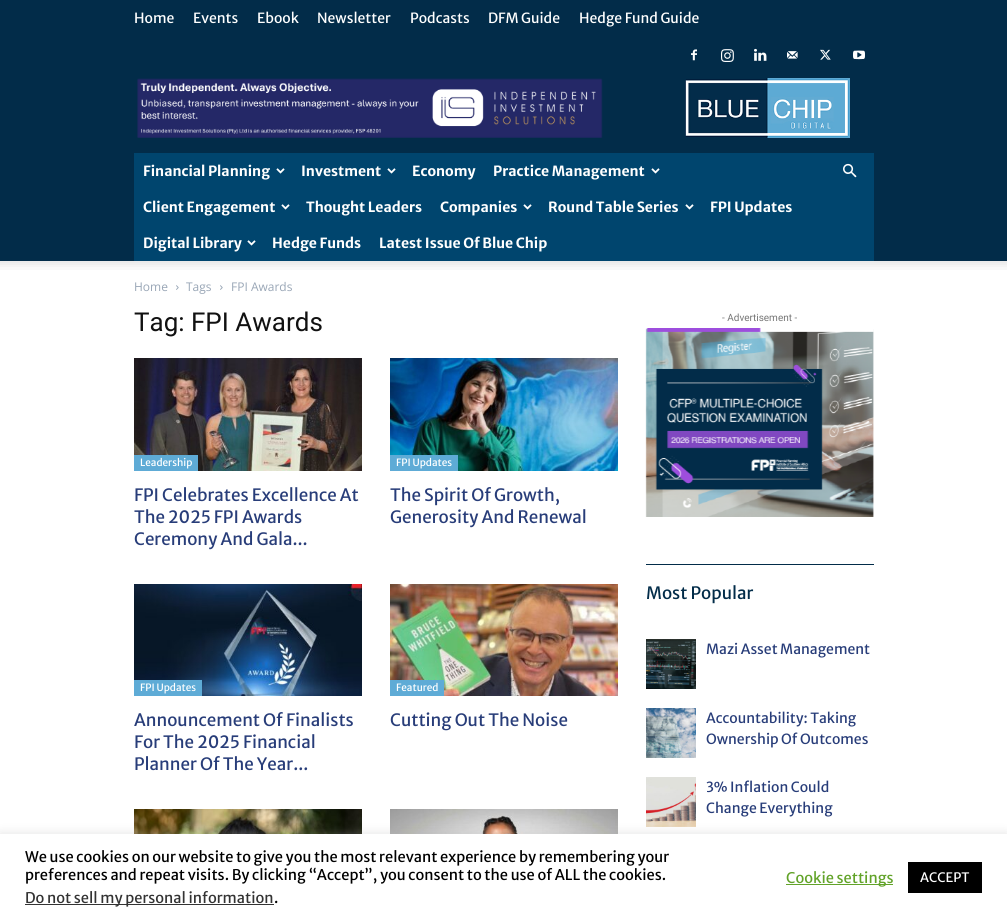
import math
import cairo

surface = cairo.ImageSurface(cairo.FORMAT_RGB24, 1007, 921)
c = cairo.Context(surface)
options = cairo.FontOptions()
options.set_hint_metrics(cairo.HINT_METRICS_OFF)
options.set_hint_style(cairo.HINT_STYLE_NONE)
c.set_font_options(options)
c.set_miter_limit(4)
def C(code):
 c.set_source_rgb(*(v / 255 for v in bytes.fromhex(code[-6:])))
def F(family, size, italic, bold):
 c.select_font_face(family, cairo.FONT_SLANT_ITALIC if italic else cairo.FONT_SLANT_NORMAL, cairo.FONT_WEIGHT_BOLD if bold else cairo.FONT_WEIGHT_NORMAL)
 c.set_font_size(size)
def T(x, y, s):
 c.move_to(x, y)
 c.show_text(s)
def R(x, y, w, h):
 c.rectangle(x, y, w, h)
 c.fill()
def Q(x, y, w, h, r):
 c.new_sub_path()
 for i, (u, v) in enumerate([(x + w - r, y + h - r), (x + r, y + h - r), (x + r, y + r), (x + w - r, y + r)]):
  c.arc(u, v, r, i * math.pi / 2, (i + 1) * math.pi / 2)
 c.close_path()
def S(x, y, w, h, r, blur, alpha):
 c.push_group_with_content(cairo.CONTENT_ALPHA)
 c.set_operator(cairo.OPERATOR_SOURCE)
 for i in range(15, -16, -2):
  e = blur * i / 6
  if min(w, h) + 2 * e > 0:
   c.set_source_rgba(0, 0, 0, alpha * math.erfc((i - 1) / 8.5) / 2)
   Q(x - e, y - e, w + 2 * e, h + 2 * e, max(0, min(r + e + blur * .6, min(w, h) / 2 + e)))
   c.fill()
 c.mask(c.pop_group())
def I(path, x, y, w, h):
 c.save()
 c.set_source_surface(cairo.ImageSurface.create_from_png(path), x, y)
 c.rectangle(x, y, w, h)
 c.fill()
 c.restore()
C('ffffff')
c.paint()
C('022c49')
R(0,0,1007,261)
I('1.png',137,78,466,60)
I('2.png',685,78,165,60)
F('Merriweather Sans',14,0,0)
C('ffffff')
T(134,23,'Home')
T(193,23,'Events')
T(257,23,'Ebook')
T(317,23,'Newsletter')
T(410,23,'Podcasts')
T(488,23,'DFM Guide')
T(579,23,'Hedge Fund Guide')
I('3.png',691,49,6,12)
I('4.png',721,49,13,13)
I('5.png',754,48,13,13)
I('6.png',787,51,11,8)
I('7.png',820,49,11,11)
I('8.png',853,50,12,10)
C('00456e')
R(134,153,740,108)
F('Merriweather Sans',14,0,1)
C('ffffff')
T(143,176,'Financial Planning')
I('9.png',276,168,9,6)
T(301,176,'Investment')
I('9.png',387,168,9,6)
T(412,176,'Economy')
T(493,176,'Practice Management')
I('9.png',651,168,9,6)
T(143,212,'Client Engagement')
I('9.png',281,204,9,6)
T(306,212,'Thought Leaders')
T(440,212,'Companies')
I('9.png',523,204,9,6)
T(548,212,'Round Table Series')
I('9.png',685,204,9,6)
T(710,212,'FPI Updates')
T(143,248,'Digital Library')
I('9.png',247,240,9,6)
T(272,248,'Hedge Funds')
T(379,248,'Latest Issue Of Blue Chip')
I('10.png',843,163,14,15)
I('11.png',0,261,1007,9)
F('Open Sans',12,0,0)
C('99a6b6')
T(134,291,'Home')
I('12.png',176,285,3,5)
T(186,291,'Tags')
I('12.png',220,285,3,5)
T(231,291,'FPI Awards')
F('Roboto',26,0,0)
C('111111')
T(134,331,'Tag: FPI Awards')
I('13.png',134,358,228,113)
C('5eabd6')
R(134,455,64,16)
F('Merriweather Sans',10,0,0)
C('ffffff')
T(140,466,'Leadership')
F('Merriweather Sans',17,0,0)
C('283d79')
T(134,501,'FPI Celebrates Excellence At')
T(134,523,'The 2025 FPI Awards')
T(134,545,'Ceremony And Gala...')
I('14.png',390,358,228,113)
C('5eabd6')
R(390,455,68,16)
F('Merriweather Sans',10,0,0)
C('ffffff')
T(396,466,'FPI Updates')
F('Merriweather Sans',17,0,0)
C('283d79')
T(390,501,'The Spirit Of Growth,')
T(390,523,'Generosity And Renewal')
I('15.png',134,584,228,112)
C('5eabd6')
R(134,680,68,16)
F('Merriweather Sans',10,0,0)
C('ffffff')
T(140,691,'FPI Updates')
F('Merriweather Sans',17,0,0)
C('283d79')
T(134,726,'Announcement Of Finalists')
T(134,748,'For The 2025 Financial')
T(134,770,'Planner Of The Year...')
I('16.png',390,584,228,112)
C('5eabd6')
R(390,680,54,16)
F('Merriweather Sans',10,0,0)
C('ffffff')
T(396,691,'Featured')
F('Merriweather Sans',17,0,0)
C('283d79')
T(390,726,'Cutting Out The Noise')
I('17.png',134,809,228,25)
I('18.png',390,809,228,25)
F('Roboto',10,0,0)
C('767676')
T(722,321,'- Advertisement -')
I('19.png',645,328,229,189)
C('022c49')
R(646,564,228,1)
F('Merriweather Sans',17,0,0)
T(646,599,'Most Popular')
I('20.png',646,639,50,50)
F('Merriweather Sans',14,0,0)
C('283d79')
T(706,654,'Mazi Asset Management')
I('21.png',646,708,50,50)
T(706,723,'Accountability: Taking')
T(706,744,'Ownership Of Outcomes')
I('22.png',646,777,50,50)
T(706,792,'3% Inflation Could')
T(706,813,'Change Everything')
C('acabab')
S(0,833,1007,87,0,5,.3)
C('ffffff')
R(0,834,1007,87)
F('Merriweather Sans',14.65,0,0)
C('000000')
T(25,862,'We use cookies on our website to give you the most relevant experience by remembering your')
T(25,880,'preferences and repeat visits. By clicking “Accept”, you consent to the use of ALL the cookies.')
C('333333')
R(25,904,249,1)
T(25,903,'Do not sell my personal information')
C('000000')
T(274,903,'.')
C('62a329')
R(786,884,107,1)
T(786,883,'Cookie settings')
C('000000')
R(908,862,74,31)
F('Merriweather Sans',13,0,0)
C('ffffff')
T(920,882,'ACCEPT')
surface.write_to_png('o.png')
